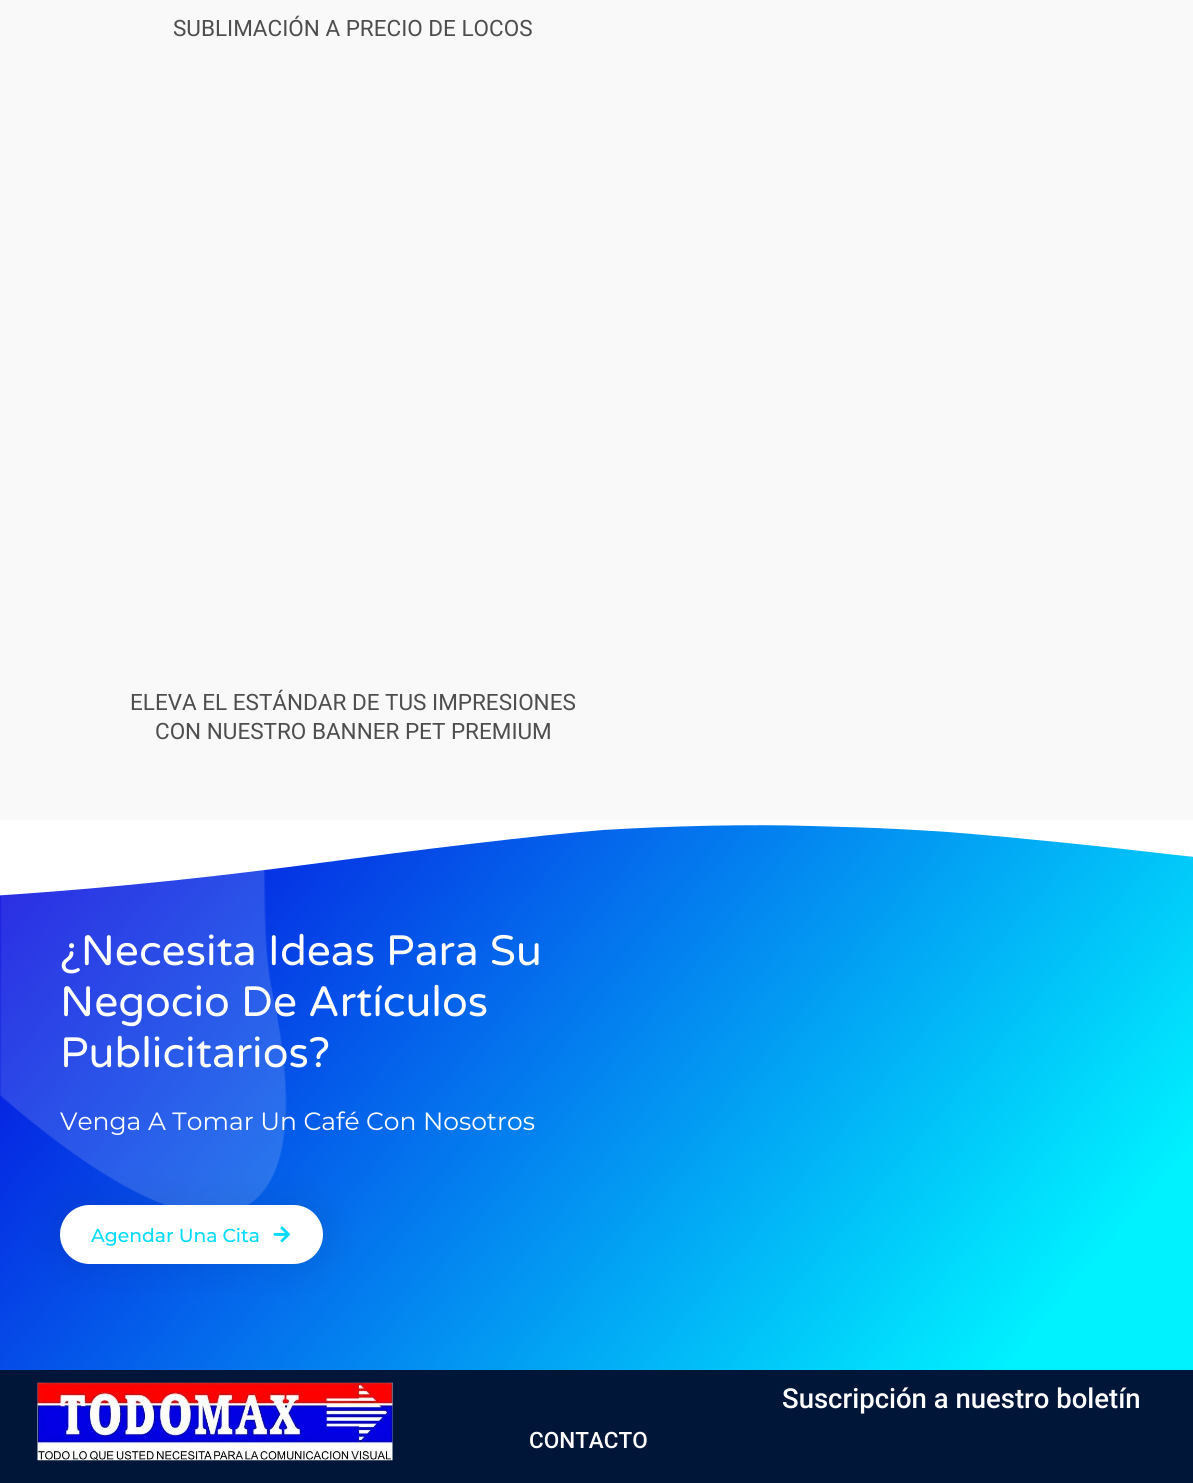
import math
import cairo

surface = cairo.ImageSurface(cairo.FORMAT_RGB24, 1193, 1483)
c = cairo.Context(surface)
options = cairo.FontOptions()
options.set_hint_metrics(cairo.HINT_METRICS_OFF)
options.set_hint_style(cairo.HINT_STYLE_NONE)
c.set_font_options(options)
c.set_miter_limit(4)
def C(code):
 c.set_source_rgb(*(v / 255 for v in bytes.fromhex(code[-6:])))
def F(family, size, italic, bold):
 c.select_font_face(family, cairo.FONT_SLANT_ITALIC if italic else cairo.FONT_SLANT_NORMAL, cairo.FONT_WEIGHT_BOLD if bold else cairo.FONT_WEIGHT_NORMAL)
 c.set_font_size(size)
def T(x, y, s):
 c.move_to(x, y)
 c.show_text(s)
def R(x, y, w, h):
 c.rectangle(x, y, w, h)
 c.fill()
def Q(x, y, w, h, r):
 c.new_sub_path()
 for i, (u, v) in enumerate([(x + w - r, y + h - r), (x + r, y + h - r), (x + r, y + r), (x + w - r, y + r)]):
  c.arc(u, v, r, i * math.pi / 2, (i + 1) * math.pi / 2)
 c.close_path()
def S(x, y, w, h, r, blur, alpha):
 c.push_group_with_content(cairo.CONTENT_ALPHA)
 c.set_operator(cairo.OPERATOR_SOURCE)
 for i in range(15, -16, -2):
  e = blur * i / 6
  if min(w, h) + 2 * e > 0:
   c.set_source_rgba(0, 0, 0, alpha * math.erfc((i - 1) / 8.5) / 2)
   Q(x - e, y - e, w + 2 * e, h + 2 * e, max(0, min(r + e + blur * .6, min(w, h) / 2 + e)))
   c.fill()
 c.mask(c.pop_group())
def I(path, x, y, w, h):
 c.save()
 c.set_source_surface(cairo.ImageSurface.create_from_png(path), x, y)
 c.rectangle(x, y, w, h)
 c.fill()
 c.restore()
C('f9f9f9')
c.paint()
F('Roboto',22.5,0,0)
C('4e4e4e')
T(173,36,'SUBLIMACIÓN A PRECIO DE LOCOS')
T(130,710,'ELEVA EL ESTÁNDAR DE TUS IMPRESIONES')
T(155,739,'CON NUESTRO BANNER PET PREMIUM')
gradient = cairo.LinearGradient(112,688,1082,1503)
gradient.add_color_stop_rgba(0,0.027,0,0.867,1)
gradient.add_color_stop_rgba(.89,0,0.949,1,1)
c.set_source(gradient)
R(0,825,1193,545)
I('1.png',0,870,287,335)
C('ffffff')
c.new_path()
c.move_to(811,826)
c.curve_to(749,824,669,826,603,830)
c.curve_to(539,835,409,851,327,862)
c.curve_to(119,890,-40,900,-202,905)
c.curve_to(-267,907,-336,908,-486,903)
c.curve_to(-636,898,-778,880,-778,880)
c.line_to(-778,820)
c.line_to(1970,820)
c.line_to(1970,847)
c.curve_to(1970,847,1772,875,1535,873)
c.curve_to(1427,873,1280,867,1167,854)
c.curve_to(1108,847,1023,838,948,832)
c.curve_to(873,827,839,827,811,826)
c.close_path()
c.fill()
F('Varela Round',42.5,0,0)
T(60,965,'¿Necesita Ideas Para Su')
T(60,1016,'Negocio De Artículos')
T(60,1067,'Publicitarios?')
F('Montserrat',25,0,0)
T(60,1130,'Venga A Tomar Un Café Con Nosotros')
C('000000')
S(60,1205,263,59,29.5,19,.1)
C('ffffff')
Q(60,1205,263,59,29.5)
c.fill()
F('Montserrat Medium',18.75,0,0)
C('00dafc')
T(91,1242,'Agendar Una Cita')
I('2.png',273,1226,17,17)
C('001639')
R(0,1370,1193,113)
I('3.png',37,1382,356,79)
F('Roboto Medium',27.5,0,0)
C('ffffff')
T(782,1408,'Suscripción a nuestro boletín')
F('Roboto Medium',22.5,0,0)
T(529,1448,'CONTACTO')
surface.write_to_png('o.png')
